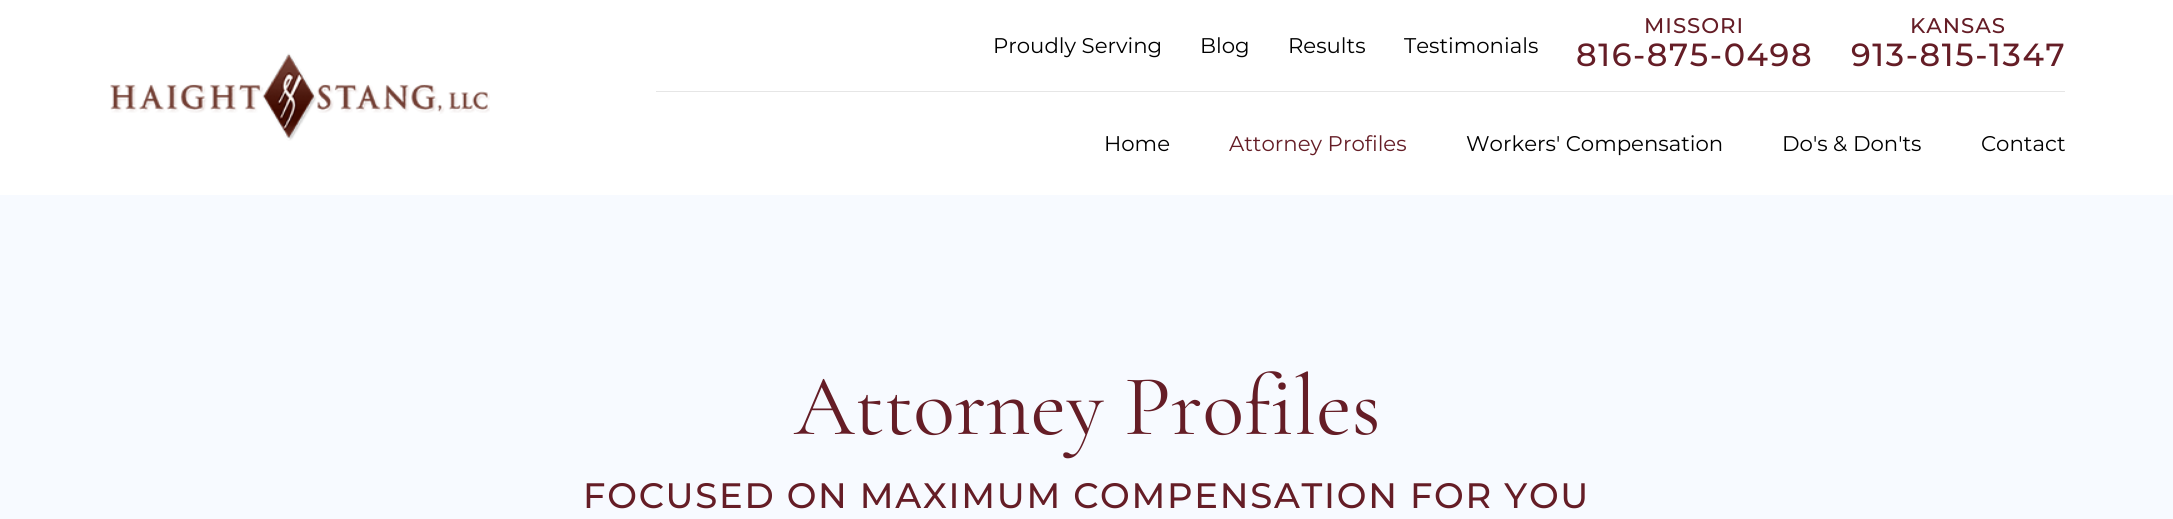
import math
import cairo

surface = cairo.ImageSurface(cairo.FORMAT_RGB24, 2173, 519)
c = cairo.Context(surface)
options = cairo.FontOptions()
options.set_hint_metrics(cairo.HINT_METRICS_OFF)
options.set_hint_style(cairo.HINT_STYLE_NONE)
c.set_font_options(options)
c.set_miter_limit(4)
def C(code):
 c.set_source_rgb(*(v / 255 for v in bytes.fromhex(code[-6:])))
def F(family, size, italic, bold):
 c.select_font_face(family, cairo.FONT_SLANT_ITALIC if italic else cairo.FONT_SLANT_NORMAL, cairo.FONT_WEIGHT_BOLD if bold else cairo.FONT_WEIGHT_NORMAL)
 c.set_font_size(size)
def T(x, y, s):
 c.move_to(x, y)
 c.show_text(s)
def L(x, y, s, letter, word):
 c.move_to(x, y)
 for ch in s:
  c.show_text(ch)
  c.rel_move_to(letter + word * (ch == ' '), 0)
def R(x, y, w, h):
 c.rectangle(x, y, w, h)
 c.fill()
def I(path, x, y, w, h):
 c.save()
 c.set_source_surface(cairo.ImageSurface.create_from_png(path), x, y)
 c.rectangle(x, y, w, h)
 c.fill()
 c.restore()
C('ffffff')
c.paint()
I('1.png',110,53,380,88)
C('e6e6e6')
R(656,91,1409,1)
F('Montserrat',21.25,0,0)
C('000000')
T(993,53,'Proudly Serving')
T(1200,53,'Blog')
T(1288,53,'Results')
T(1404,53,'Testimonials')
F('Montserrat Medium',21.25,0,0)
C('651d26')
L(1644,33,'MISSORI',1,0)
F('Montserrat Medium',32,0,0)
L(1576,66,'816-875-0498',1.6,0)
F('Montserrat Medium',21.25,0,0)
L(1910,33,'KANSAS',1,0)
F('Montserrat Medium',32,0,0)
L(1851,66,'913-815-1347',1.6,0)
F('Montserrat',21.25,0,0)
C('000000')
T(1104,151,'Home')
C('651d26')
T(1229,151,'Attorney Profiles')
C('000000')
T(1466,151,'Workers\' Compensation')
T(1782,151,'Do\'s & Don\'ts')
T(1981,151,'Contact')
C('f7faff')
R(0,195,2173,324)
F('Cormorant Garamond',86.5,0,0)
C('651d26')
T(794,434,'Attorney Profiles')
F('Montserrat Medium',35.35,0,0)
L(583,508,'FOCUSED ON MAXIMUM COMPENSATION FOR YOU',1.75,0)
surface.write_to_png('o.png')
